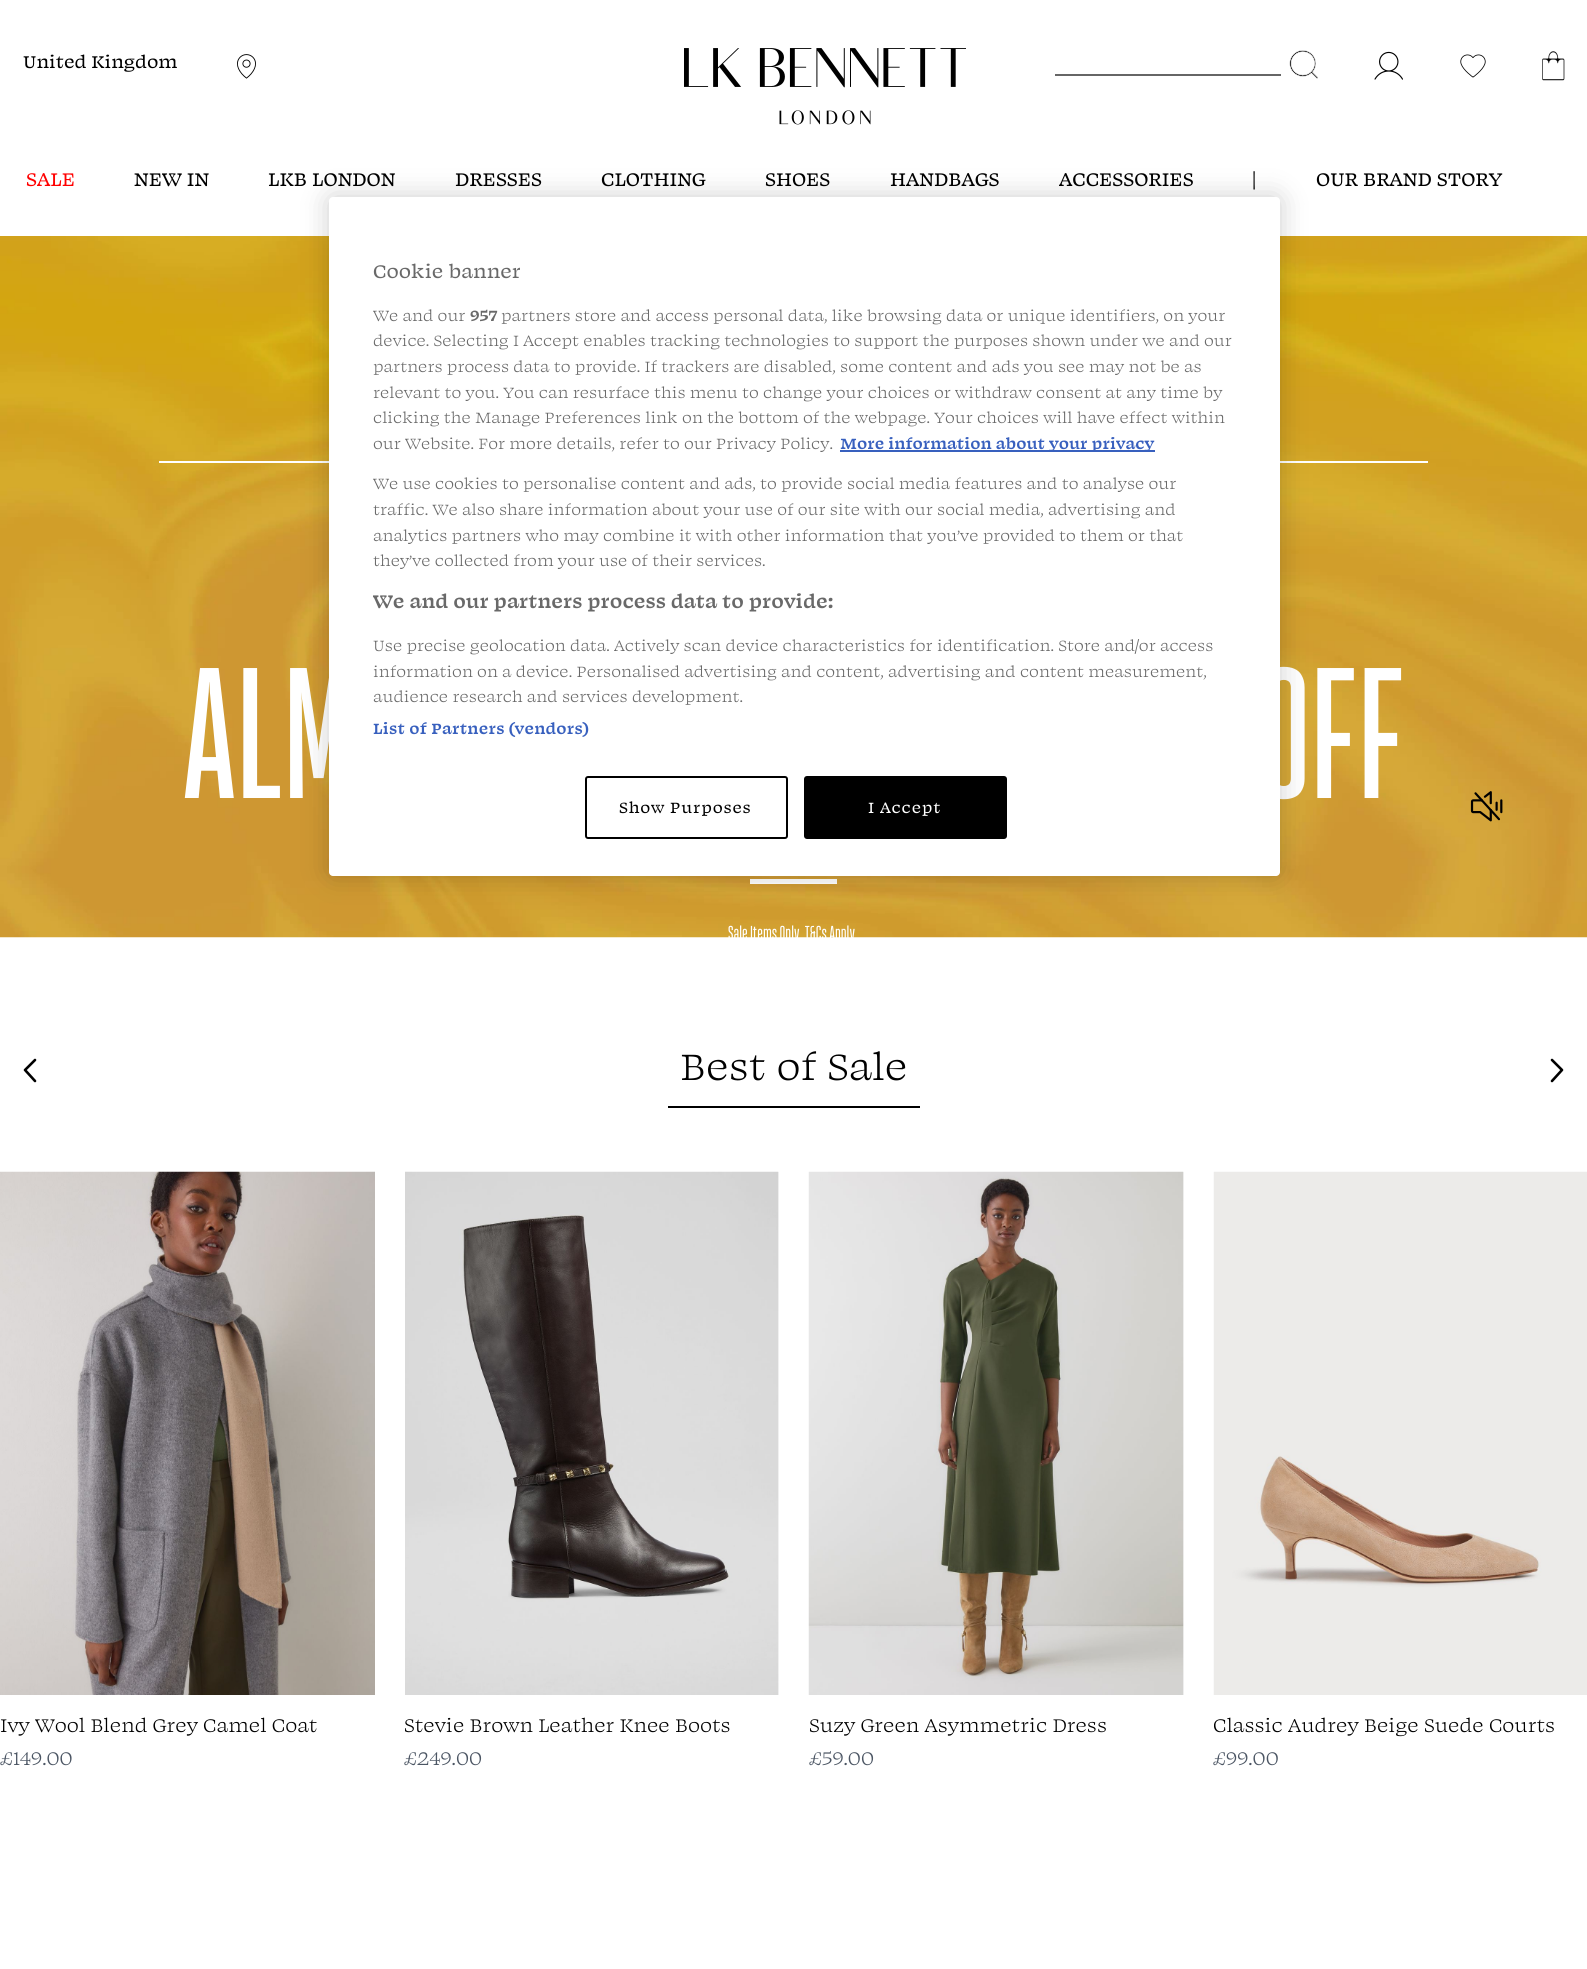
import math
import cairo

surface = cairo.ImageSurface(cairo.FORMAT_RGB24, 1587, 1969)
c = cairo.Context(surface)
options = cairo.FontOptions()
options.set_hint_metrics(cairo.HINT_METRICS_OFF)
options.set_hint_style(cairo.HINT_STYLE_NONE)
c.set_font_options(options)
c.set_miter_limit(4)
def C(code):
 c.set_source_rgb(*(v / 255 for v in bytes.fromhex(code[-6:])))
def F(family, size, italic, bold):
 c.select_font_face(family, cairo.FONT_SLANT_ITALIC if italic else cairo.FONT_SLANT_NORMAL, cairo.FONT_WEIGHT_BOLD if bold else cairo.FONT_WEIGHT_NORMAL)
 c.set_font_size(size)
def T(x, y, s):
 c.move_to(x, y)
 c.show_text(s)
def L(x, y, s, letter, word):
 c.move_to(x, y)
 for ch in s:
  c.show_text(ch)
  c.rel_move_to(letter + word * (ch == ' '), 0)
def R(x, y, w, h):
 c.rectangle(x, y, w, h)
 c.fill()
def Q(x, y, w, h, r):
 c.new_sub_path()
 for i, (u, v) in enumerate([(x + w - r, y + h - r), (x + r, y + h - r), (x + r, y + r), (x + w - r, y + r)]):
  c.arc(u, v, r, i * math.pi / 2, (i + 1) * math.pi / 2)
 c.close_path()
def S(x, y, w, h, r, blur, alpha):
 c.push_group_with_content(cairo.CONTENT_ALPHA)
 c.set_operator(cairo.OPERATOR_SOURCE)
 for i in range(15, -16, -2):
  e = blur * i / 6
  if min(w, h) + 2 * e > 0:
   c.set_source_rgba(0, 0, 0, alpha * math.erfc((i - 1) / 8.5) / 2)
   Q(x - e, y - e, w + 2 * e, h + 2 * e, max(0, min(r + e + blur * .6, min(w, h) / 2 + e)))
   c.fill()
 c.mask(c.pop_group())
def I(path, x, y, w, h):
 c.save()
 c.set_source_surface(cairo.ImageSurface.create_from_png(path), x, y)
 c.rectangle(x, y, w, h)
 c.fill()
 c.restore()
C('ffffff')
c.paint()
F('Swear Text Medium',19.5,0,0)
C('000000')
T(23,68,'United Kingdom')
I('1.png',237,54,19,25)
I('2.png',684,48,282,77)
C('666666')
R(1055,74,226,2)
I('3.png',1289,50,29,29)
I('4.png',1374,51,29,29)
I('5.png',1460,54,26,24)
I('6.png',1542,51,23,30)
F('Swear Text Medium',21,0,0)
C('ff0000')
T(26,186,'SALE')
C('000000')
T(134,186,'NEW IN')
T(268,186,'LKB LONDON')
T(455,186,'DRESSES')
T(601,186,'CLOTHING')
T(765,186,'SHOES')
T(890,186,'HANDBAGS')
T(1059,186,'ACCESSORIES')
F('Swear Text',21,0,0)
T(1252,186,'|')
F('Swear Text Medium',21,0,0)
T(1316,186,'OUR BRAND STORY')
I('7.png',0,236,1587,702)
C('ffffff')
R(159,461,1269,2)
F('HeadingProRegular',175,0,0)
T(182,798,'ALM')
T(1257,798,'OFF')
R(750,879,87,5)
F('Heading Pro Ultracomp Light',19,0,0)
T(728,940,'Sale Items Only. T&Cs Apply')
I('8.png',1470,791,33,31)
c.new_path()
c.move_to(35,1081)
c.line_to(25,1070)
c.line_to(35,1060)
C('000000')
c.set_line_width(2.6)
c.set_line_cap(cairo.LINE_CAP_ROUND)
c.set_line_join(cairo.LINE_JOIN_ROUND)
c.stroke()
F('Swear Text',42,0,0)
T(680,1080,'Best of Sale')
R(668,1106,252,2)
c.new_path()
c.move_to(1552,1081)
c.line_to(1562,1070)
c.line_to(1552,1060)
c.stroke()
I('9.png',0,1171,375,524)
F('Swear Text',21,0,0)
T(0,1732,'Ivy Wool Blend Grey Camel Coat')
C('4b5563')
T(0,1765,'£149.00')
C('f7f7f7')
R(778,1172,1,523)
I('10.png',405,1171,374,524)
C('000000')
T(404,1732,'Stevie Brown Leather Knee Boots')
C('4b5563')
T(404,1765,'£249.00')
C('f7f7f7')
R(1183,1172,1,523)
I('11.png',808,1171,376,524)
C('000000')
T(809,1732,'Suzy Green Asymmetric Dress')
C('4b5563')
T(809,1765,'£59.00')
I('12.png',1213,1171,374,524)
c.save()
c.rectangle(1214,1713,373,26)
c.clip()
C('000000')
T(1213,1732,'Classic Audrey Beige Suede Courts')
c.restore()
T(1213,1765,'£99.00')
C('000000')
S(329,197,951,679,4,13.5,.2)
C('ffffff')
Q(329,197,951,679,4)
c.fill()
F('Swear Text Medium',21,0,0)
C('696969')
T(373,278,'Cookie banner')
F('Swear Text',17.07,0,0)
T(373,321,'We and our')
F('Swear Text',17.07,0,1)
T(470,321,'957')
F('Swear Text',17.07,0,0)
T(501,321,'partners store and access personal data, like browsing data or unique identifiers, on your')
T(373,346,'device. Selecting I Accept enables tracking technologies to support the purposes shown under we and our')
T(373,372,'partners process data to provide. If trackers are disabled, some content and ads you see may not be as')
T(373,398,'relevant to you. You can resurface this menu to change your choices or withdraw consent at any time by')
T(373,423,'clicking the Manage Preferences link on the bottom of the webpage. Your choices will have effect within')
T(373,449,'our Website. For more details, refer to our Privacy Policy.')
C('3860be')
R(840,450,315,2)
F('Swear Text',17.07,0,1)
T(840,449,'More information about your privacy')
F('Swear Text',17.07,0,0)
C('696969')
T(373,489,'We use cookies to personalise content and ads, to provide social media features and to analyse our')
T(373,515,'traffic. We also share information about your use of our site with our social media, advertising and')
T(373,541,'analytics partners who may combine it with other information that you’ve provided to them or that')
T(373,566,'they’ve collected from your use of their services.')
F('Swear Text',21,0,1)
T(373,608,'We and our partners process data to provide:')
F('Swear Text',17.07,0,0)
T(373,651,'Use precise geolocation data. Actively scan device characteristics for identification. Store and/or access')
T(373,677,'information on a device. Personalised advertising and content, advertising and content measurement,')
T(373,702,'audience research and services development.')
F('Swear Text',17.07,0,1)
C('3860be')
L(373,734,'List of Partners (vendors)',.2,0)
Q(586,777,201,61,2)
C('000000')
c.set_line_width(2)
c.set_line_cap(cairo.LINE_CAP_BUTT)
c.set_line_join(cairo.LINE_JOIN_MITER)
c.stroke()
F('Swear Text Medium',17.07,0,0)
L(619,813,'Show Purposes',.8,0)
Q(805,777,201,61,2)
c.fill_preserve()
c.stroke()
C('ffffff')
L(868,813,'I Accept',.8,0)
surface.write_to_png('o.png')
